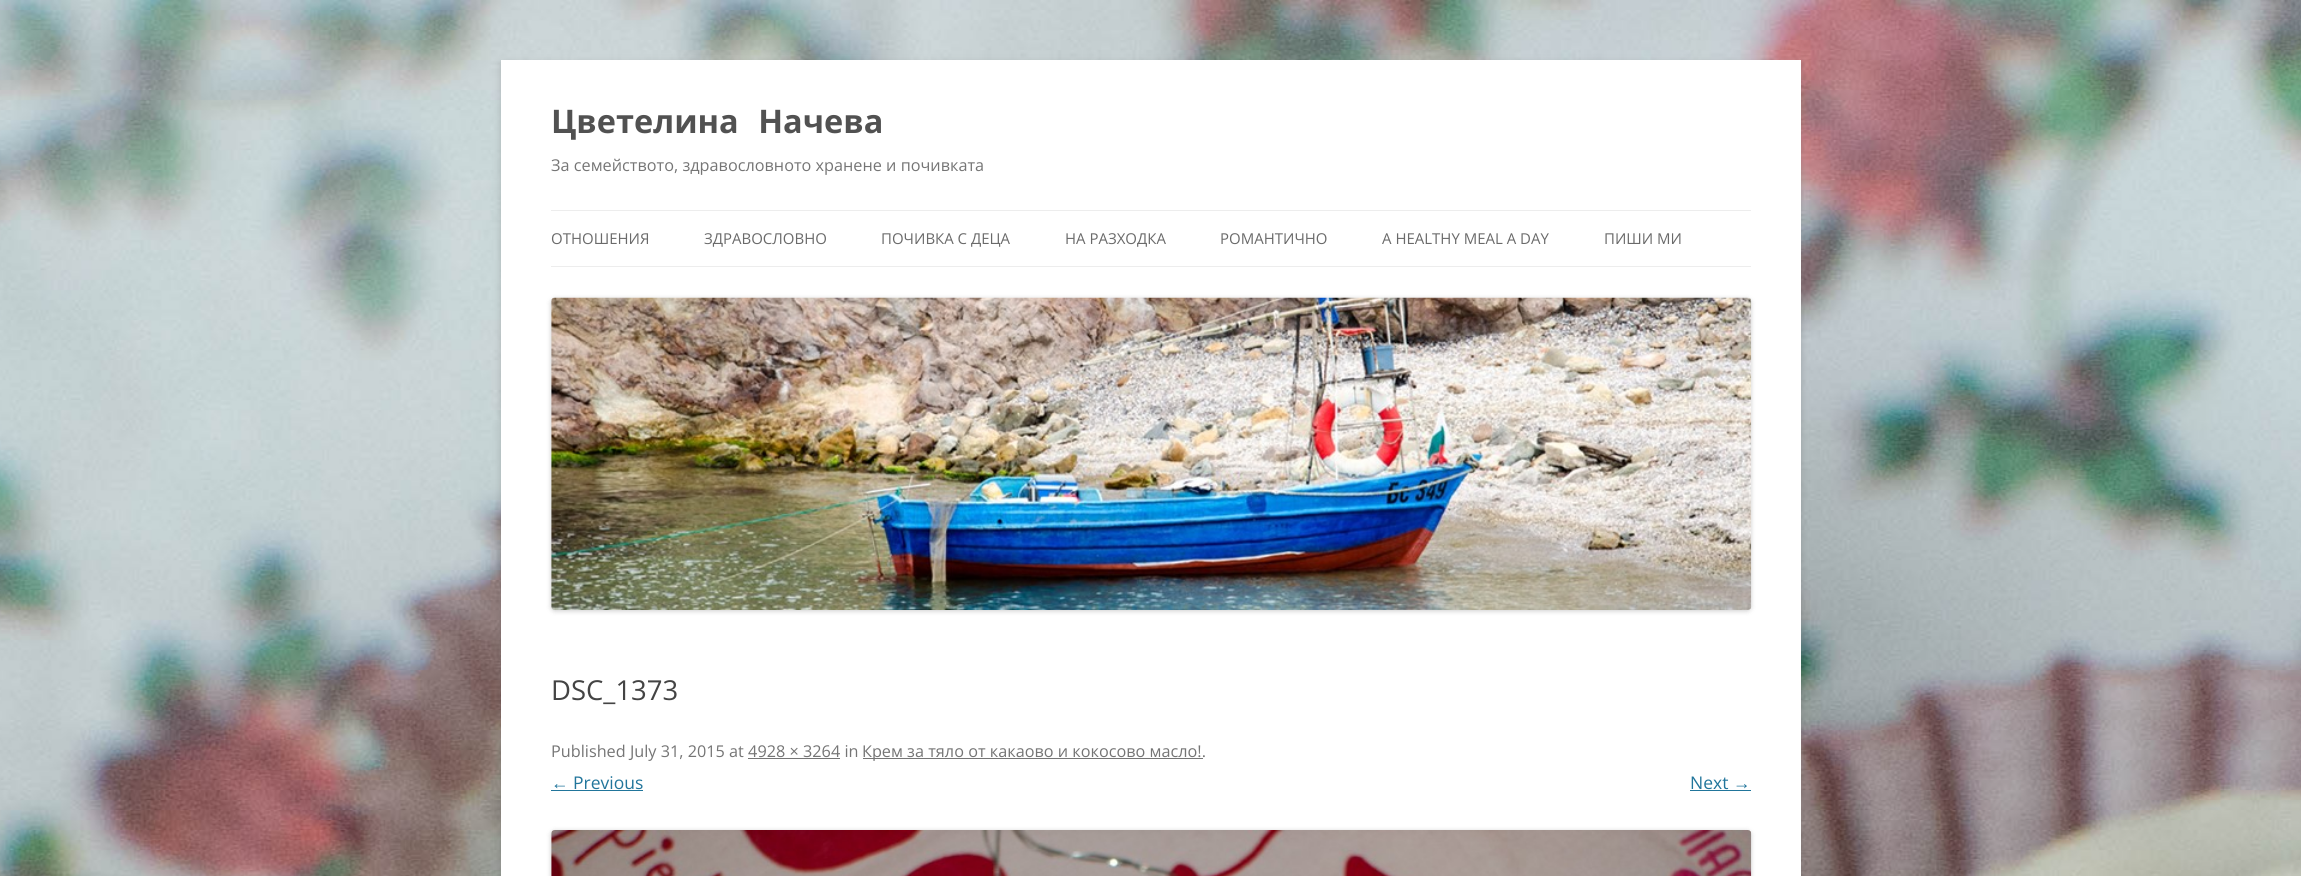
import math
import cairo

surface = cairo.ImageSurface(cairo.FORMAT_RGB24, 2301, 876)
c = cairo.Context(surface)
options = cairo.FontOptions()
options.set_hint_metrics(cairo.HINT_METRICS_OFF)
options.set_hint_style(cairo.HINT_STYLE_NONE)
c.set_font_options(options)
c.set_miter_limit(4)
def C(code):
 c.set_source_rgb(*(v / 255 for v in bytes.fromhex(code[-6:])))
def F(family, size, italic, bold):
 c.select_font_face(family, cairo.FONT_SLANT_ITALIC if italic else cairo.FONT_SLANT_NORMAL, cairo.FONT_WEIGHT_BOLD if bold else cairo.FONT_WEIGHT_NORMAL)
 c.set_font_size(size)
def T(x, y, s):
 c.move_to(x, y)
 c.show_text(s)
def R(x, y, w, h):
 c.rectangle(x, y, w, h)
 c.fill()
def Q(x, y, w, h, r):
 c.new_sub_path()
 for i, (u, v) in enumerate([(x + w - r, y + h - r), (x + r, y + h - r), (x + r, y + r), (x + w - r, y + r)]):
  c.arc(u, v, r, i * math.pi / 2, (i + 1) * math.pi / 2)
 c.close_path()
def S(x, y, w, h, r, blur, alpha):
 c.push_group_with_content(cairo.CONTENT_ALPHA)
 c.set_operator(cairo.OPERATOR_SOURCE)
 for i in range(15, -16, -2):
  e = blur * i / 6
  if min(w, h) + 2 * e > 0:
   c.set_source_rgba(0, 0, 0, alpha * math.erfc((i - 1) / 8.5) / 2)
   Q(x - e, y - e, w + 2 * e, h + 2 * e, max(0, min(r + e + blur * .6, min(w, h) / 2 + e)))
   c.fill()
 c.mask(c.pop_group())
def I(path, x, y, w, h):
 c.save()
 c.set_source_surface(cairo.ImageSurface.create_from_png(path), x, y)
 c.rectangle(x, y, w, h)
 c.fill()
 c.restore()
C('ffffff')
c.paint()
I('1.png',0,0,2301,876)
C('646464')
S(501,63,1300,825,0,4,.3)
C('ffffff')
R(501,60,1300,816)
F('Open Sans',32.5,0,1)
C('515151')
T(551,133,'Цветелина Начева')
F('Open Sans',16.25,0,0)
C('757575')
T(551,171,'За семейството, здравословното хранене и почивката')
C('ededed')
R(551,210,1200,1)
R(551,266,1200,1)
F('Open Sans',15,0,0)
C('6a6a6a')
T(551,244,'ОТНОШЕНИЯ')
T(704,244,'ЗДРАВОСЛОВНО')
T(881,244,'ПОЧИВКА С ДЕЦА')
T(1065,244,'НА РАЗХОДКА')
T(1220,244,'РОМАНТИЧНО')
T(1382,244,'A HEALTHY MEAL A DAY')
T(1604,244,'ПИШИ МИ')
C('000000')
S(551,299,1200,312,4,2.5,.2)
I('2.png',551,297,1201,313)
F('Open Sans',27.5,0,0)
C('444444')
T(551,700,'DSC_1373')
F('Open Sans',16.25,0,0)
C('757575')
T(551,757,'Published July 31, 2015 at 4928 × 3264 in')
R(863,758,340,1)
T(862,757,'Крем за тяло от какаово и кокосово масло!.')
R(748,758,92,1)
F('Liberation Sans',17.5,0,0)
C('21759b')
T(551,789,'←')
R(551,790,92,1)
F('Open Sans',17.5,0,0)
T(573,789,'Previous')
T(1690,789,'Next')
F('Liberation Sans',17.5,0,0)
T(1733,789,'→')
R(1690,790,61,1)
C('000000')
S(551,831,1200,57,4,2.5,.2)
I('3.png',551,830,1201,46)
surface.write_to_png('o.png')
